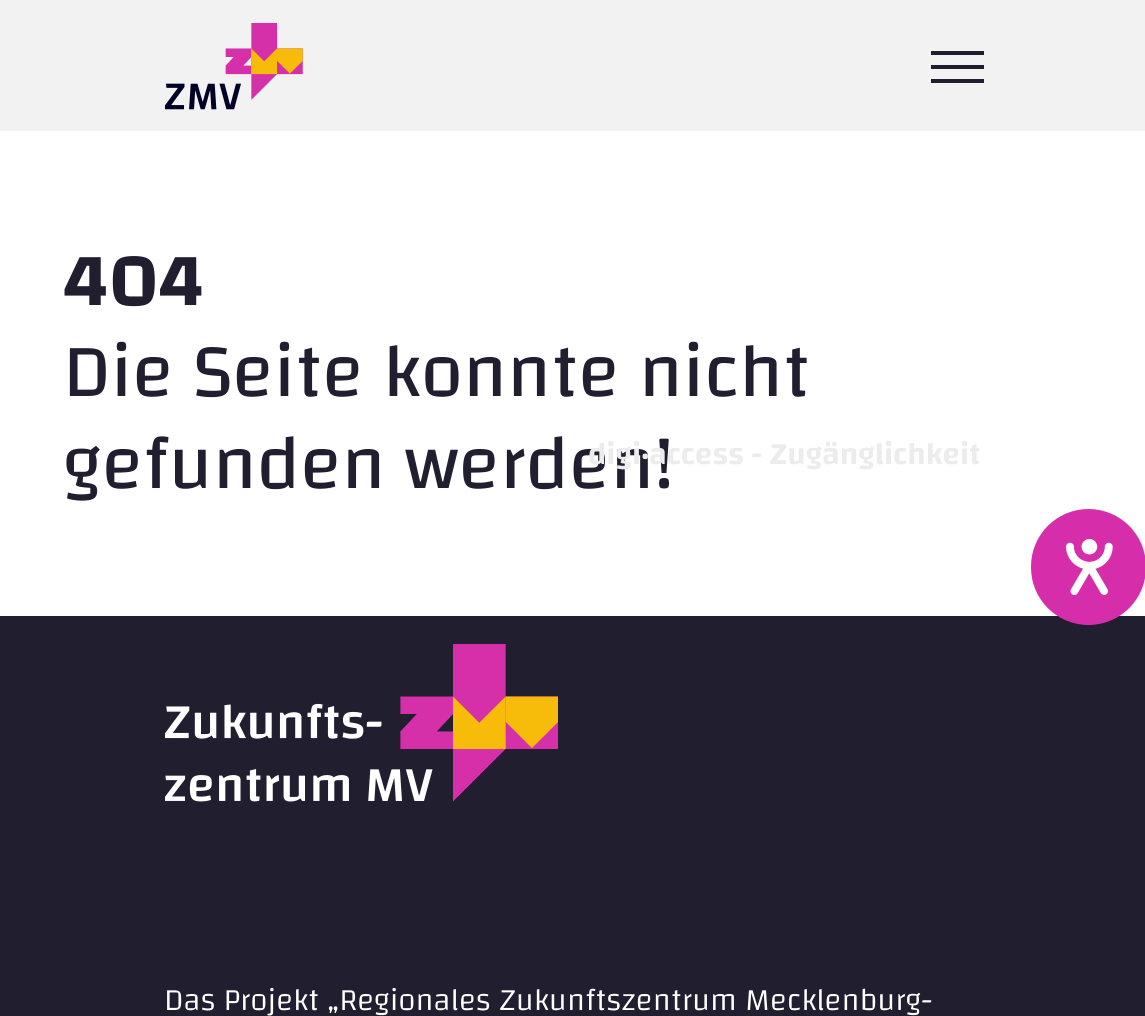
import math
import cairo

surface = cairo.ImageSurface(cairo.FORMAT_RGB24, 1145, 1016)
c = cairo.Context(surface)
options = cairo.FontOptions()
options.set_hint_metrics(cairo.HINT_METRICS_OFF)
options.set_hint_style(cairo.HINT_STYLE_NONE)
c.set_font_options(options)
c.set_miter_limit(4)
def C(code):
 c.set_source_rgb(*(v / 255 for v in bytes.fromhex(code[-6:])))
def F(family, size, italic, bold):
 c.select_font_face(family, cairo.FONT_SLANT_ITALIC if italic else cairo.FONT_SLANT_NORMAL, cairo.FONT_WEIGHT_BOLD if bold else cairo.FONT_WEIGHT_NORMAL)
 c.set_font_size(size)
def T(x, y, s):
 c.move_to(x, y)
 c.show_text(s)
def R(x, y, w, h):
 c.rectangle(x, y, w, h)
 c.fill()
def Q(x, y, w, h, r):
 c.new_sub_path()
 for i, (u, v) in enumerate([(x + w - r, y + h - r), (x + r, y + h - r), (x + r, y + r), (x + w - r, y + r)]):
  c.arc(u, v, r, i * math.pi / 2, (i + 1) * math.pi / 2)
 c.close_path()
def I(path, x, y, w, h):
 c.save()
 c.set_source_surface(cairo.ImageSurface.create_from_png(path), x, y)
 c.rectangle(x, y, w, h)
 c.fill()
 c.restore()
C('ffffff')
c.paint()
C('f3f2f2')
R(0,0,1145,131)
I('1.png',165,23,138,87)
C('211e30')
R(931,65,53,4)
R(931,51,53,4)
R(931,79,53,4)
F('Changa SemiBold',76.5,0,0)
T(63,305,'404')
F('Changa',76.5,0,0)
T(63,396,'Die Seite konnte nicht')
T(63,488,'gefunden werden!')
R(0,616,1145,400)
I('2.png',165,644,393,158)
F('Changa Light',31.5,0,0)
C('ffffff')
T(164,1010,'Das Projekt „Regionales Zukunftszentrum Mecklenburg-')
F('Changa SemiBold',31.5,0,0)
C('ececed')
T(588,464,'digi·access - Zugänglichkeit')
C('d62eaa')
Q(1031,509,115,116,57.5)
c.fill()
I('3.png',1066,539,47,56)
surface.write_to_png('o.png')
